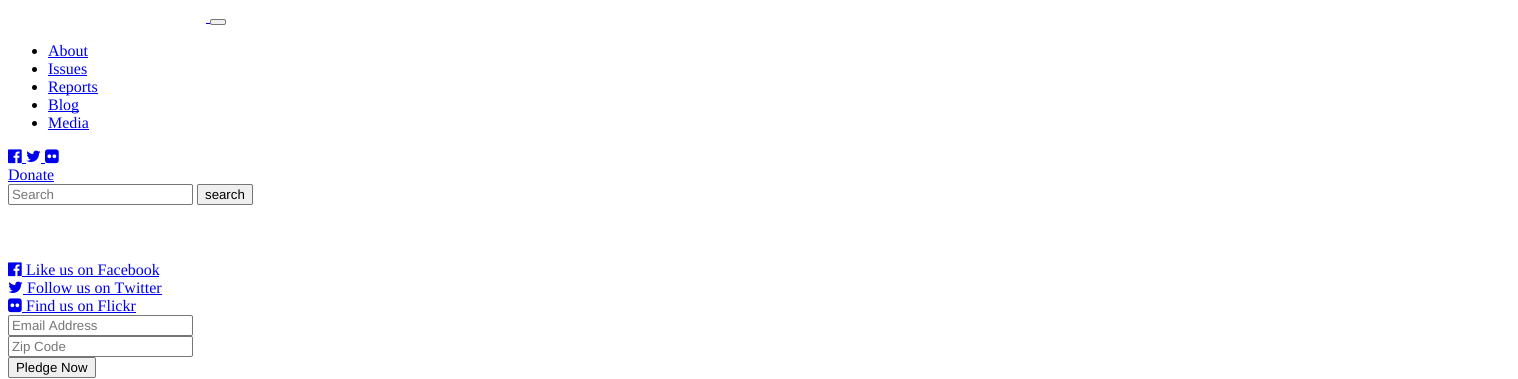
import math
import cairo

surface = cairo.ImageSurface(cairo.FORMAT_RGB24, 1518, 379)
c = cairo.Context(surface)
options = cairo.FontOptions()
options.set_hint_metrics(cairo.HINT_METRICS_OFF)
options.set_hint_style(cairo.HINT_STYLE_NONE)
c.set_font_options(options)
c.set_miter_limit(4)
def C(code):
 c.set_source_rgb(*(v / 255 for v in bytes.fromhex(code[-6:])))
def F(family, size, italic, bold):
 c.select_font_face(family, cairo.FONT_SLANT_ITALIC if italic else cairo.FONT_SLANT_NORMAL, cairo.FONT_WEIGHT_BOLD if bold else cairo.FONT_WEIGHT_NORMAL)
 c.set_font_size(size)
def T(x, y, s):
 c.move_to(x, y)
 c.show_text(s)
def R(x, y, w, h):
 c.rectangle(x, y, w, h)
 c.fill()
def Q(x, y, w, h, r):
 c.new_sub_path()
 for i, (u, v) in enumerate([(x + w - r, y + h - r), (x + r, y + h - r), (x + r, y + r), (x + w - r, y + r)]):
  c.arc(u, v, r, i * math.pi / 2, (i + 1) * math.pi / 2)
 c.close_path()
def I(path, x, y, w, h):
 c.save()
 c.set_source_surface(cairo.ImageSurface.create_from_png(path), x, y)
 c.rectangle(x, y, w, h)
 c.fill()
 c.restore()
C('ffffff')
c.paint()
C('0000ee')
R(206,23,4,1)
C('efefef')
Q(210.5,19.5,15,5,1.5)
c.fill_preserve()
C('767676')
c.set_line_width(1)
c.stroke()
C('000000')
c.arc(34.5,51.5,2.5,0,2 * math.pi)
c.fill()
F('Liberation Serif',16,0,0)
C('0000ee')
T(48,56,'About')
R(48,57,40,1)
C('000000')
c.new_path()
c.arc(34.5,69.5,2.5,0,2 * math.pi)
c.fill()
C('0000ee')
T(48,74,'Issues')
R(48,75,39,1)
C('000000')
c.new_path()
c.arc(34.5,87.5,2.5,0,2 * math.pi)
c.fill()
C('0000ee')
R(48,93,50,1)
T(48,92,'Reports')
C('000000')
c.new_path()
c.arc(34.5,105.5,2.5,0,2 * math.pi)
c.fill()
C('0000ee')
R(48,111,31,1)
T(48,110,'Blog')
C('000000')
c.new_path()
c.arc(34.5,123.5,2.5,0,2 * math.pi)
c.fill()
C('0000ee')
T(48,128,'Media')
R(48,129,41,1)
I('1.png',8,149,14,15)
R(22,163,4,1)
I('2.png',26,150,15,12)
R(41,163,4,1)
I('3.png',45,149,14,15)
T(8,180,'Donate')
R(8,181,46,1)
Q(8.5,184.5,184,20,1.5)
C('767676')
c.stroke()
F('Liberation Sans',13.25,0,0)
C('757575')
T(12,199,'Search')
C('efefef')
Q(197.5,184.5,55,20,1.5)
c.fill_preserve()
C('767676')
c.stroke()
C('000000')
T(205,199,'search')
I('1.png',8,262,14,15)
F('Liberation Serif',16,0,0)
C('0000ee')
T(26,275,'Like us on Facebook')
R(22,276,137,1)
I('2.png',8,281,15,12)
T(27,293,'Follow us on Twitter')
R(23,294,139,1)
I('3.png',8,298,14,15)
T(26,311,'Find us on Flickr')
R(22,312,114,1)
Q(8.5,315.5,184,20,1.5)
C('767676')
c.stroke()
F('Liberation Sans',13.25,0,0)
C('757575')
T(12,330,'Email Address')
Q(8.5,336.5,184,20,1.5)
C('767676')
c.stroke()
C('757575')
T(12,351,'Zip Code')
C('efefef')
Q(8.5,357.5,87,20,1.5)
c.fill_preserve()
C('767676')
c.stroke()
C('000000')
T(16,372,'Pledge Now')
surface.write_to_png('o.png')
